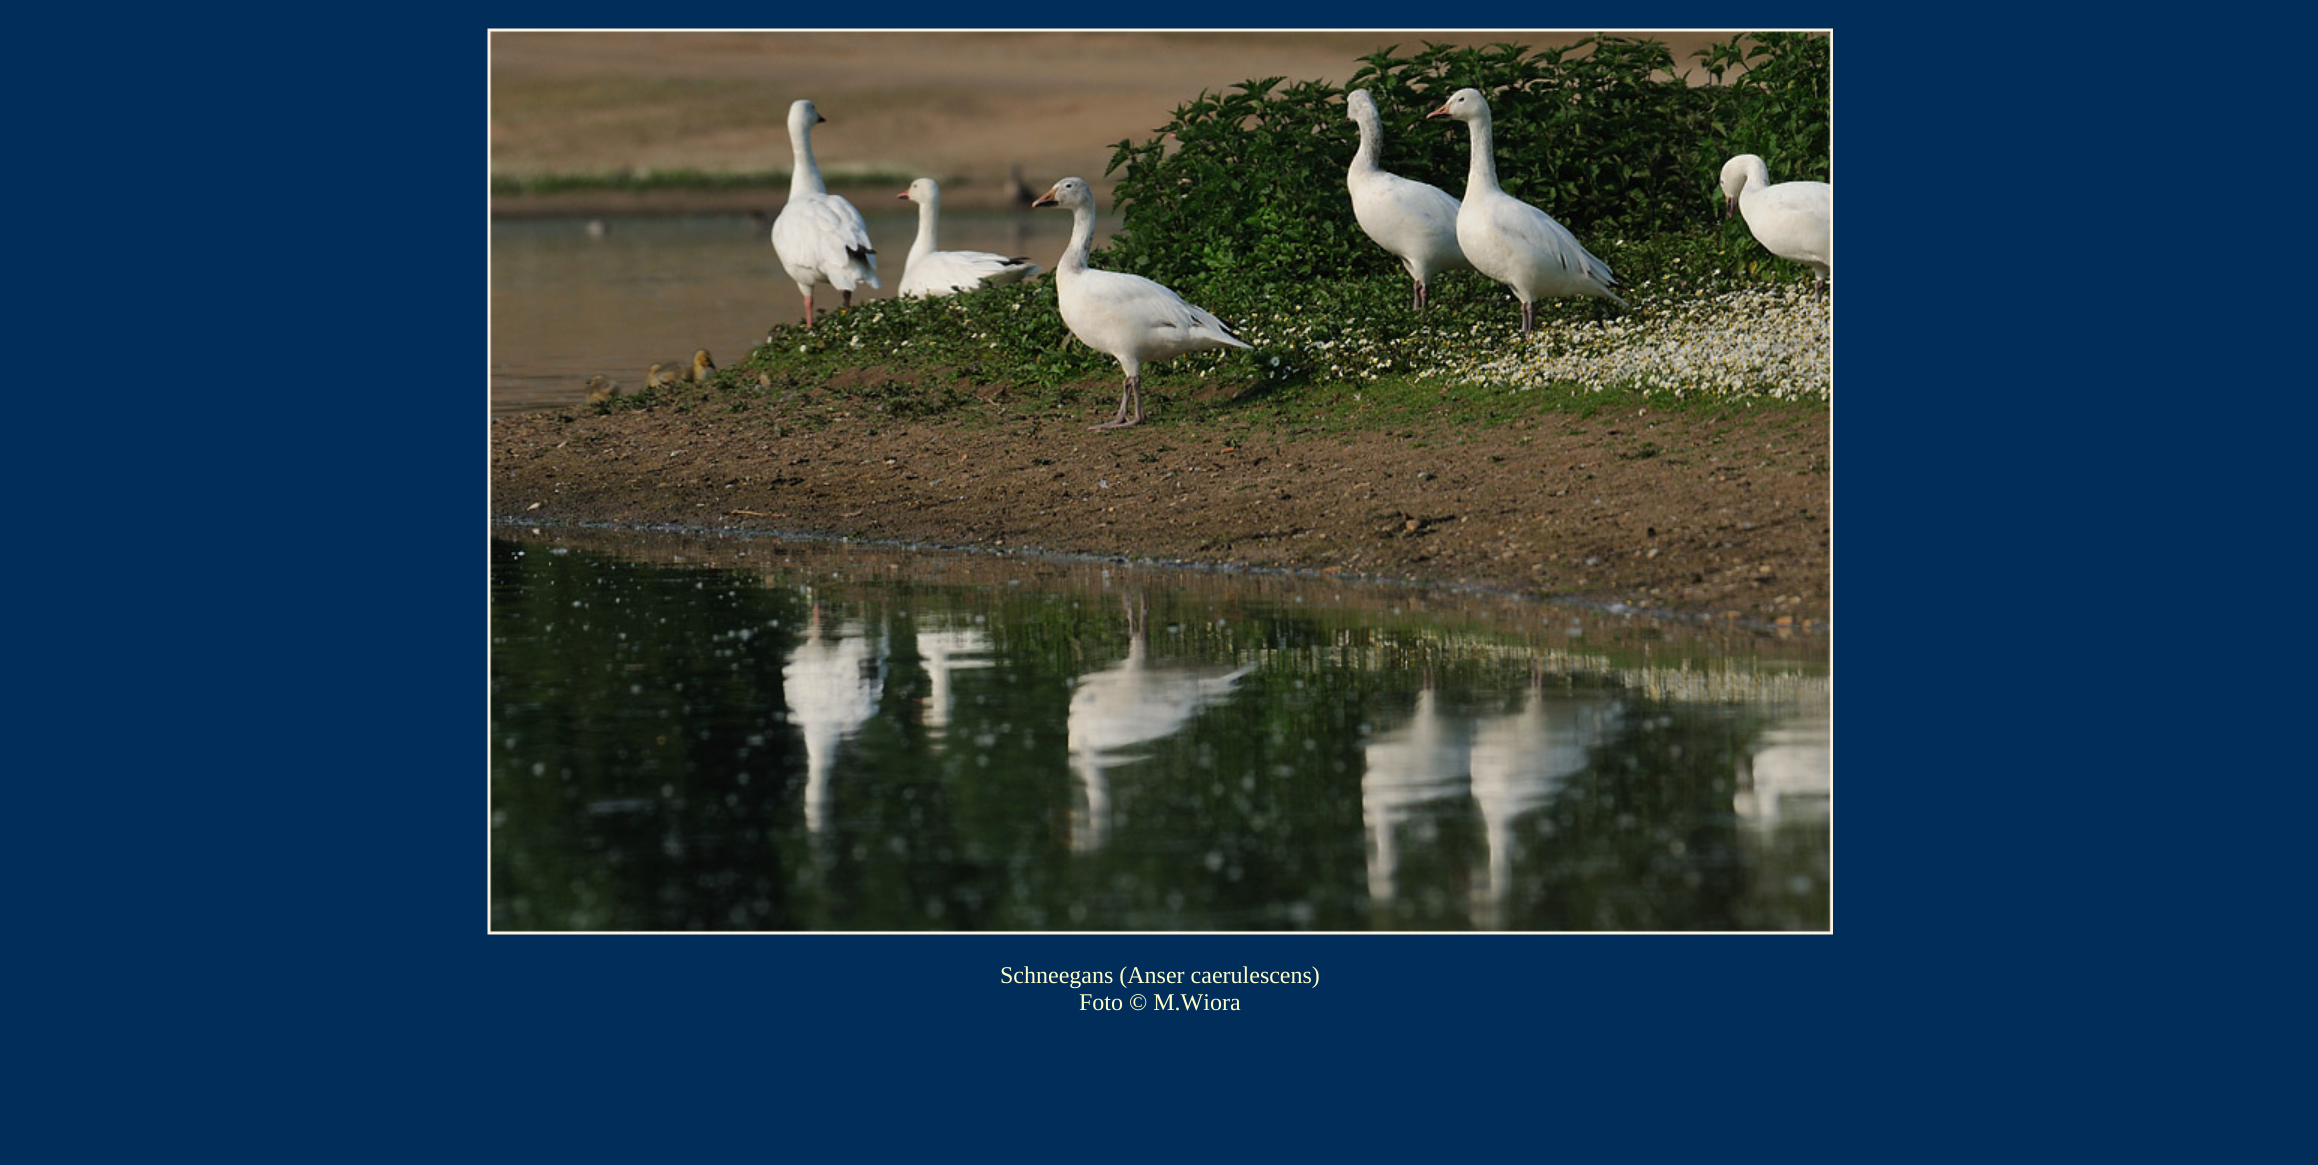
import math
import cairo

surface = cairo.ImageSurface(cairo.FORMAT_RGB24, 2318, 1165)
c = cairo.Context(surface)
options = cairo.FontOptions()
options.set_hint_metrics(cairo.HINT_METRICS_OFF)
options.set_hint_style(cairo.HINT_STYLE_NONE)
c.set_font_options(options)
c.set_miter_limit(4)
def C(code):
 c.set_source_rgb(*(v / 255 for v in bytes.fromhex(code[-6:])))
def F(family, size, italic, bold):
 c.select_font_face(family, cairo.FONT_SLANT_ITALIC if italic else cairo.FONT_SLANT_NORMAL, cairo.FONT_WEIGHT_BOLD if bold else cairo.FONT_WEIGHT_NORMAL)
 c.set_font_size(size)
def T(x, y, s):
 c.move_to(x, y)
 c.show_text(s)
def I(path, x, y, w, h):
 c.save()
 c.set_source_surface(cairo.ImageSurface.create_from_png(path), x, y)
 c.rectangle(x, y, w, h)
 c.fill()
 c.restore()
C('002d59')
c.paint()
I('1.png',487,28,1346,907)
F('Liberation Serif',24,0,0)
C('ffffca')
T(1000,983,'Schneegans (Anser caerulescens)')
T(1079,1010,'Foto © M.Wiora')
surface.write_to_png('o.png')
